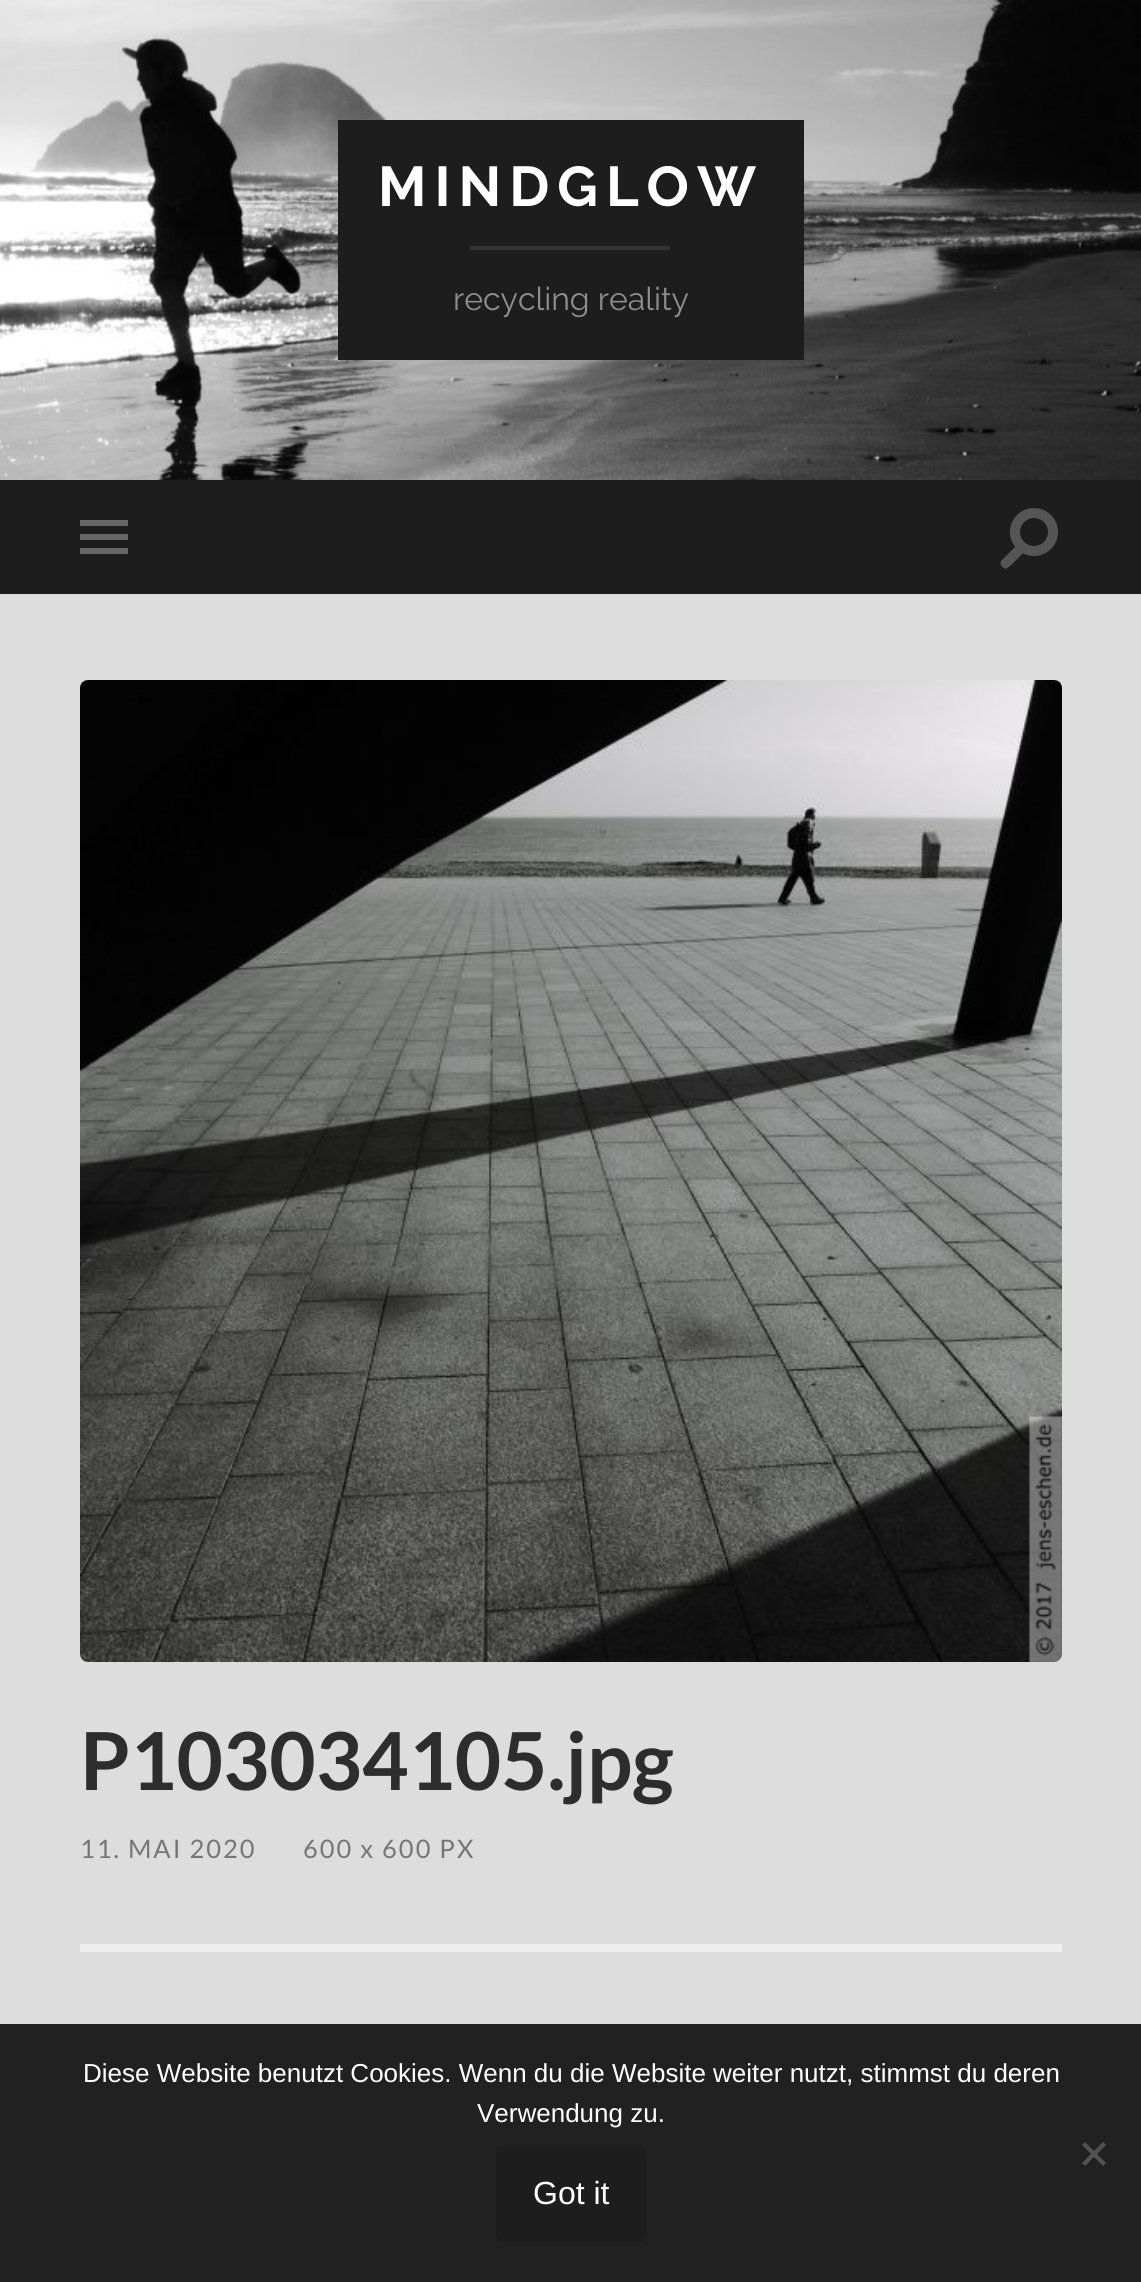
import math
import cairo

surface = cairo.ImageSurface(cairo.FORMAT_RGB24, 1141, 2282)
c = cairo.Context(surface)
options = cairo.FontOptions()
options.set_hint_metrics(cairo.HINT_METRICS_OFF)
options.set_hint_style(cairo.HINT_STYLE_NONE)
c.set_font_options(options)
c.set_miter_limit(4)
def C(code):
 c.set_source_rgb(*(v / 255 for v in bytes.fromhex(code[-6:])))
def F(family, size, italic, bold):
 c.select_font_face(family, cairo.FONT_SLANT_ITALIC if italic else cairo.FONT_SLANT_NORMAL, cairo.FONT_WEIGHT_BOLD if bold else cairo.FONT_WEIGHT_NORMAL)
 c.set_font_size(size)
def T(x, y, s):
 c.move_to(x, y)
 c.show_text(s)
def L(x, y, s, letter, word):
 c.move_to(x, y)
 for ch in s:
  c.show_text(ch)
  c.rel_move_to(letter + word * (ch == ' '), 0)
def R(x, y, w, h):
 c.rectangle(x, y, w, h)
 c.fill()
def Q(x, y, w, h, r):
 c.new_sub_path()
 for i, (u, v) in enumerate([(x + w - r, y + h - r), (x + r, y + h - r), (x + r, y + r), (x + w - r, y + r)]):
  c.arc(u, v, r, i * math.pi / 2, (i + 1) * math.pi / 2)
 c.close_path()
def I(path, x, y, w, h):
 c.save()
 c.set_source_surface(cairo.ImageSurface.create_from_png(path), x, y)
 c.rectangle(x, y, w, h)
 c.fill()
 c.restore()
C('dddddd')
c.paint()
I('1.png',0,0,1141,480)
C('1d1d1d')
R(338,120,466,240)
F('Raleway Thin',56,0,0)
C('ffffff')
L(378,206,'MINDGLOW',8,0)
C('343434')
R(470,246,200,4)
F('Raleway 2 Thin',32,0,0)
C('8e8e8e')
T(453,310,'recycling reality')
C('1d1d1d')
R(0,480,1141,114)
C('666666')
R(80,520,48,6)
R(80,534,48,6)
R(80,548,48,6)
C('555555')
c.new_path()
c.arc(1034,532,24,0,2 * math.pi)
c.fill()
C('1d1d1d')
c.arc(1034,532,14,0,2 * math.pi)
c.fill()
C('555555')
c.new_path()
c.move_to(1001.5,560.5)
c.line_to(1018.5,543.5)
c.line_to(1025.5,550.5)
c.curve_to(1022.5,553.5,1009,568,1006.5,568.5)
c.curve_to(1002.5,569.5,998.5,563.5,1001.5,560.5)
c.close_path()
c.fill()
I('2.png',80,680,982,982)
F('Lato',80,0,1)
C('2d2d2d')
T(80,1790,'P103034105.jpg')
F('Lato',25.5,0,0)
C('767676')
L(80,1858,'11. MAI 2020',2,0)
L(303,1858,'600 x 600 PX',2,0)
C('eeeeee')
R(80,1944,982,8)
C('212121')
R(0,2024,1141,258)
F('Liberation Sans',26,0,0)
C('ffffff')
T(83,2082,'Diese Website benutzt Cookies. Wenn du die Website weiter nutzt, stimmst du deren')
T(477,2122,'Verwendung zu.')
C('515151')
c.new_path()
c.move_to(1103,2142)
c.line_to(1106,2145)
c.line_to(1085,2166)
c.line_to(1082,2163)
c.close_path()
c.fill()
c.new_path()
c.move_to(1082,2145)
c.line_to(1085,2142)
c.line_to(1106,2163)
c.line_to(1103,2166)
c.close_path()
c.fill()
C('1d1d1d')
Q(496,2146,150,96,8)
c.fill()
F('Liberation Sans',32,0,0)
C('ffffff')
T(533,2204,'Got it')
surface.write_to_png('o.png')
